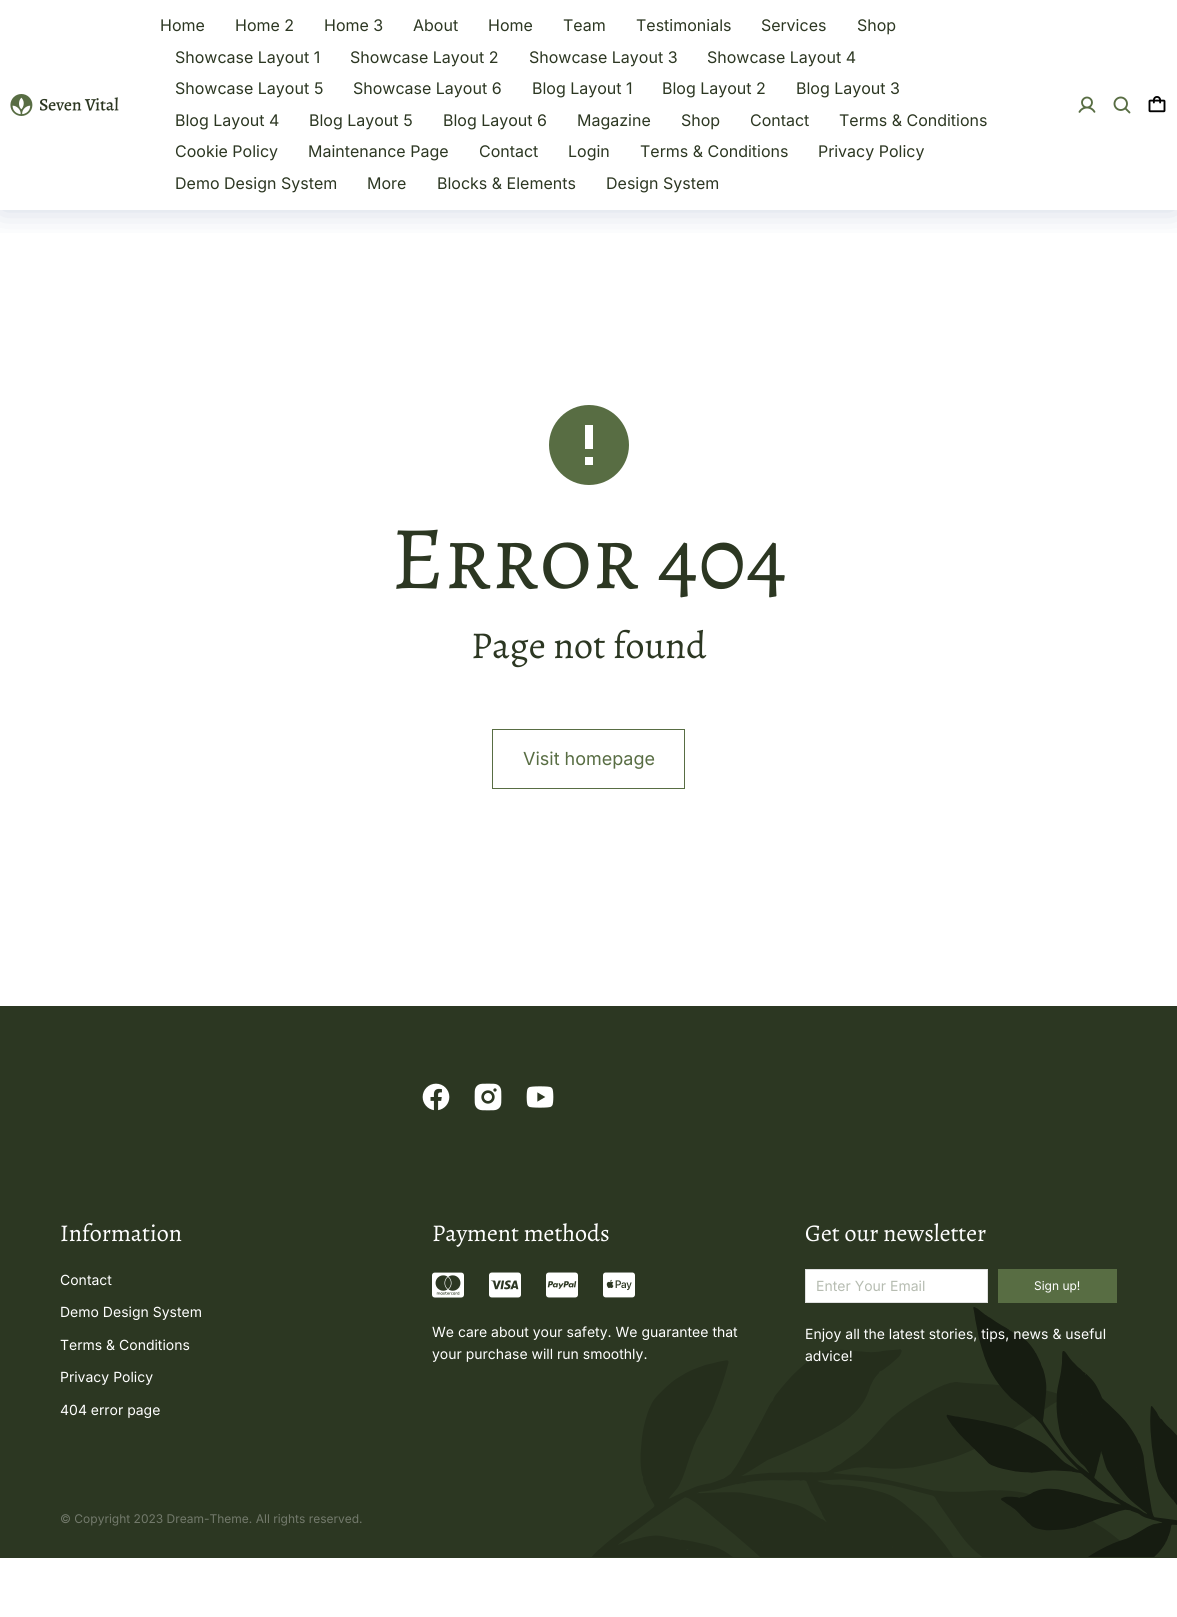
import math
import cairo

surface = cairo.ImageSurface(cairo.FORMAT_RGB24, 1177, 1617)
c = cairo.Context(surface)
options = cairo.FontOptions()
options.set_hint_metrics(cairo.HINT_METRICS_OFF)
options.set_hint_style(cairo.HINT_STYLE_NONE)
c.set_font_options(options)
c.set_miter_limit(4)
def C(code):
 c.set_source_rgb(*(v / 255 for v in bytes.fromhex(code[-6:])))
def F(family, size, italic, bold):
 c.select_font_face(family, cairo.FONT_SLANT_ITALIC if italic else cairo.FONT_SLANT_NORMAL, cairo.FONT_WEIGHT_BOLD if bold else cairo.FONT_WEIGHT_NORMAL)
 c.set_font_size(size)
def T(x, y, s):
 c.move_to(x, y)
 c.show_text(s)
def R(x, y, w, h):
 c.rectangle(x, y, w, h)
 c.fill()
def Q(x, y, w, h, r):
 c.new_sub_path()
 for i, (u, v) in enumerate([(x + w - r, y + h - r), (x + r, y + h - r), (x + r, y + r), (x + w - r, y + r)]):
  c.arc(u, v, r, i * math.pi / 2, (i + 1) * math.pi / 2)
 c.close_path()
def S(x, y, w, h, r, blur, alpha):
 c.push_group_with_content(cairo.CONTENT_ALPHA)
 c.set_operator(cairo.OPERATOR_SOURCE)
 for i in range(15, -16, -2):
  e = blur * i / 6
  if min(w, h) + 2 * e > 0:
   c.set_source_rgba(0, 0, 0, alpha * math.erfc((i - 1) / 8.5) / 2)
   Q(x - e, y - e, w + 2 * e, h + 2 * e, max(0, min(r + e + blur * .6, min(w, h) / 2 + e)))
   c.fill()
 c.mask(c.pop_group())
def I(path, x, y, w, h):
 c.save()
 c.set_source_surface(cairo.ImageSurface.create_from_png(path), x, y)
 c.rectangle(x, y, w, h)
 c.fill()
 c.restore()
C('ffffff')
c.paint()
c.save()
c.rectangle(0,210,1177,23)
c.clip()
C('405c92')
S(0,0,1177,210,0,16.5,.25)
c.restore()
I('1.png',10,94,109,22)
F('Inter',16,0,0)
C('2c3722')
T(160,31,'Home')
T(235,31,'Home 2')
T(324,31,'Home 3')
T(413,31,'About')
T(488,31,'Home')
T(563,31,'Team')
T(636,31,'Testimonials')
T(761,31,'Services')
T(857,31,'Shop')
T(175,63,'Showcase Layout 1')
T(350,63,'Showcase Layout 2')
T(529,63,'Showcase Layout 3')
T(707,63,'Showcase Layout 4')
T(175,94,'Showcase Layout 5')
T(353,94,'Showcase Layout 6')
T(532,94,'Blog Layout 1')
T(662,94,'Blog Layout 2')
T(796,94,'Blog Layout 3')
T(175,126,'Blog Layout 4')
T(309,126,'Blog Layout 5')
T(443,126,'Blog Layout 6')
T(577,126,'Magazine')
T(681,126,'Shop')
T(750,126,'Contact')
T(839,126,'Terms & Conditions')
T(175,157,'Cookie Policy')
T(308,157,'Maintenance Page')
T(479,157,'Contact')
T(568,157,'Login')
T(640,157,'Terms & Conditions')
T(818,157,'Privacy Policy')
T(175,189,'Demo Design System')
T(367,189,'More')
T(437,189,'Blocks & Elements')
T(606,189,'Design System')
I('2.png',1078,96,18,17)
I('3.png',1113,96,18,18)
I('4.png',1148,96,18,17)
C('586d43')
c.new_path()
c.move_to(589,485)
c.curve_to(567,485,549,467,549,445)
c.curve_to(549,423,567,405,589,405)
c.curve_to(611,405,629,423,629,445)
c.curve_to(629,467,611,485,589,485)
c.close_path()
c.move_to(585,457)
c.line_to(585,465)
c.line_to(593,465)
c.line_to(593,457)
c.close_path()
c.move_to(585,425)
c.line_to(585,449)
c.line_to(593,449)
c.line_to(593,425)
c.close_path()
c.fill()
F('Alegreya SC',90,0,0)
C('2c3722')
T(391,588,'Error 404')
F('Alegreya',38,0,0)
T(471,658,'Page not found')
c.rectangle(492.5,729.5,192,59)
C('586d43')
c.set_line_width(1)
c.stroke()
F('Inter',18,0,0)
T(523,765,'Visit homepage')
C('2c3722')
R(0,1006,1177,552)
I('5.png',422,1083,28,28)
I('6.png',474,1083,28,28)
I('7.png',526,1086,28,22)
F('Alegreya',24,0,0)
C('ffffff')
T(60,1241,'Information')
F('Inter',14,0,0)
T(60,1285,'Contact')
T(60,1317,'Demo Design System')
T(60,1350,'Terms & Conditions')
T(60,1382,'Privacy Policy')
T(60,1415,'404 error page')
F('Alegreya',24,0,0)
T(432,1241,'Payment methods')
I('8.png',432,1272,32,26)
I('9.png',489,1272,32,26)
I('10.png',546,1272,32,26)
I('11.png',603,1272,32,26)
I('12.png',592,1307,585,250)
F('Inter',14,0,0)
T(432,1337,'We care about your safety. We guarantee that')
T(432,1359,'your purchase will run smoothly.')
F('Alegreya',24,0,0)
T(805,1241,'Get our newsletter')
c.rectangle(805.5,1269.5,182,33)
c.fill_preserve()
C('e0e0e0')
c.stroke()
F('Inter',14,0,0)
C('b6bcb1')
T(816,1291,'Enter Your Email')
C('586d43')
R(998,1269,119,34)
F('Inter',12,0,0)
C('ffffff')
T(1034,1290,'Sign up!')
F('Inter',14,0,0)
T(805,1339,'Enjoy all the latest stories, tips, news & useful')
T(805,1361,'advice!')
F('Inter',12,0,0)
C('72796b')
T(60,1523,'© Copyright 2023 Dream-Theme. All rights reserved.')
surface.write_to_png('o.png')
